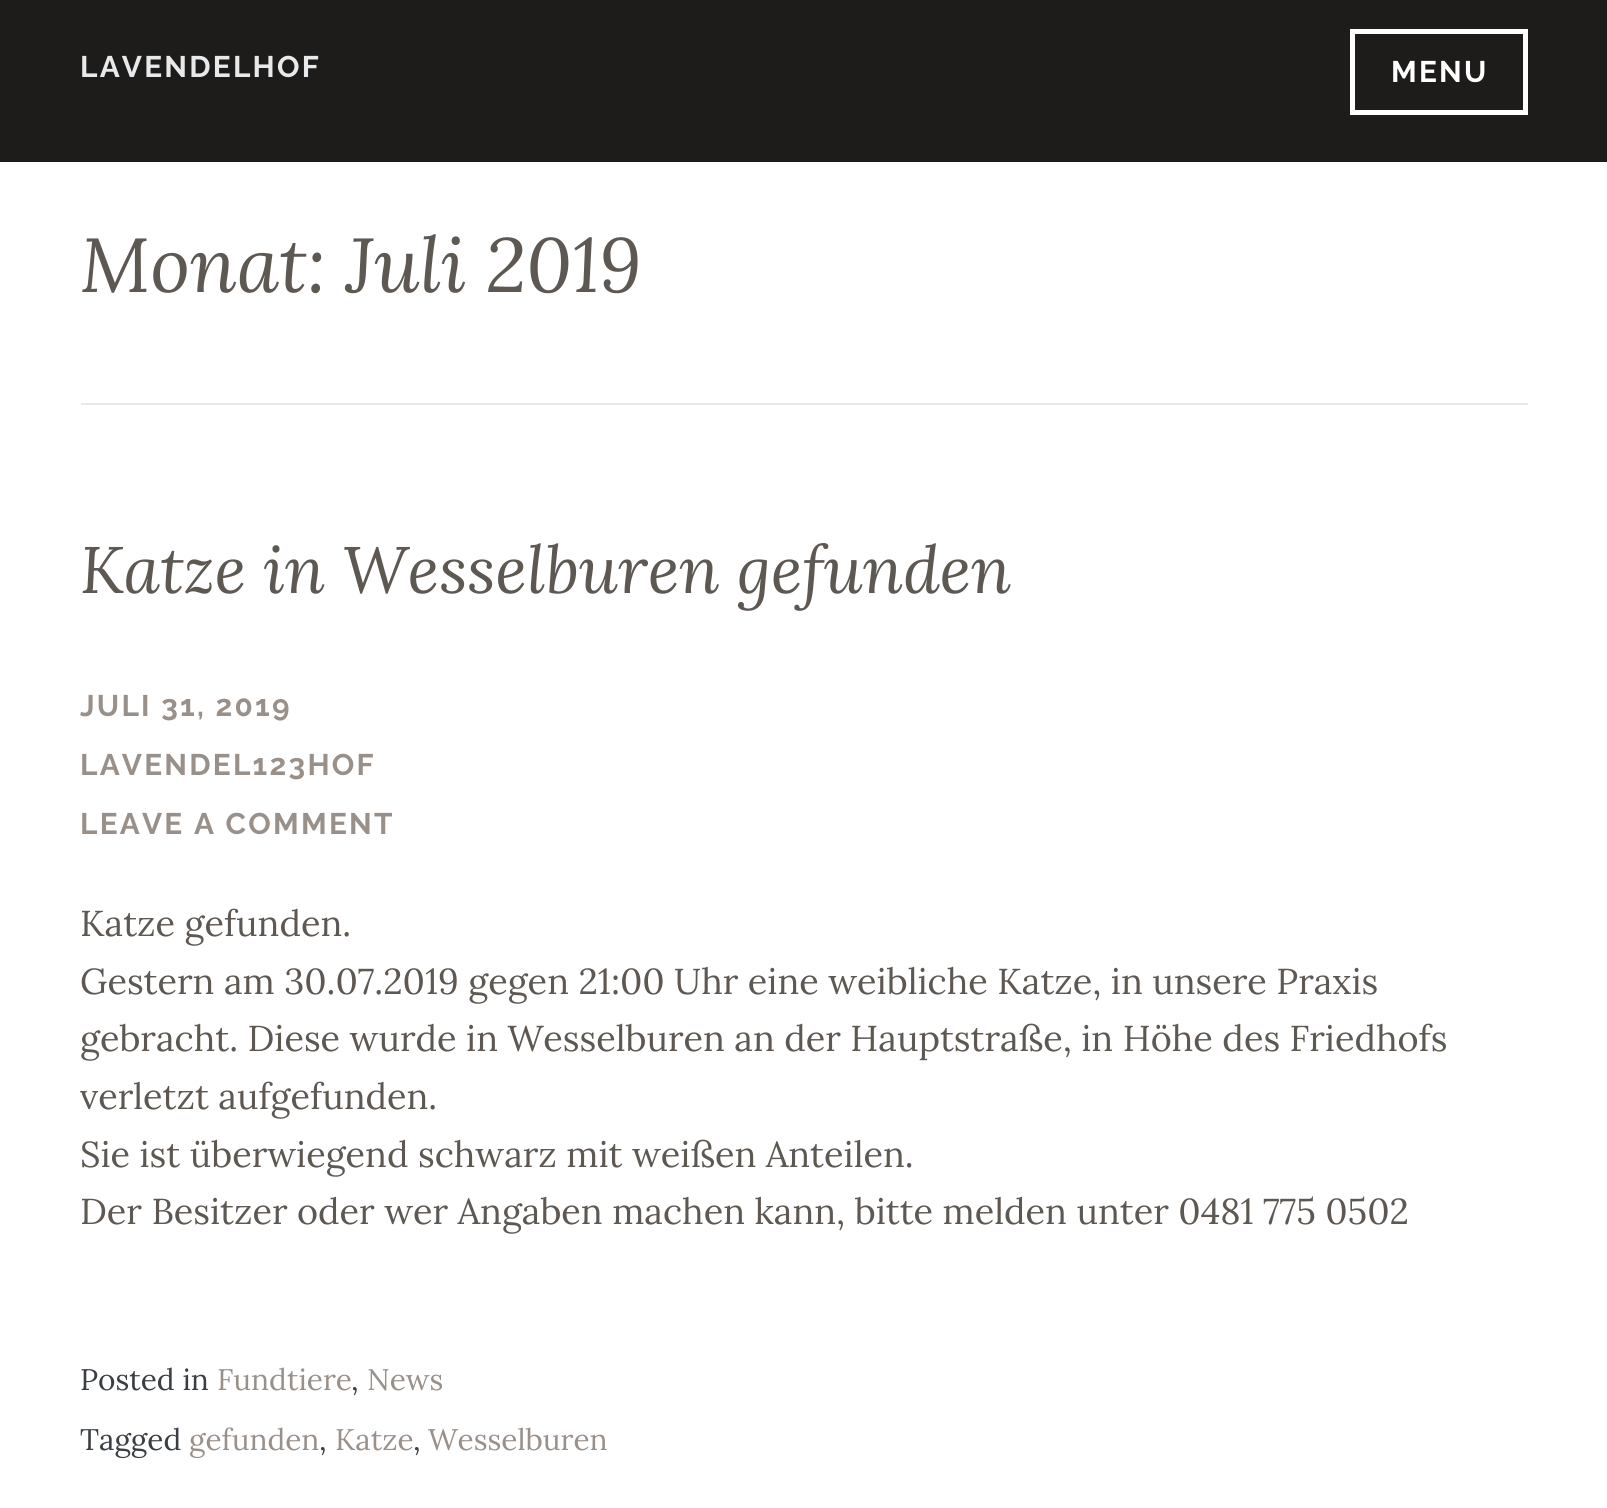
import math
import cairo

surface = cairo.ImageSurface(cairo.FORMAT_RGB24, 1607, 1508)
c = cairo.Context(surface)
options = cairo.FontOptions()
options.set_hint_metrics(cairo.HINT_METRICS_OFF)
options.set_hint_style(cairo.HINT_STYLE_NONE)
c.set_font_options(options)
c.set_miter_limit(4)
def C(code):
 c.set_source_rgb(*(v / 255 for v in bytes.fromhex(code[-6:])))
def F(family, size, italic, bold):
 c.select_font_face(family, cairo.FONT_SLANT_ITALIC if italic else cairo.FONT_SLANT_NORMAL, cairo.FONT_WEIGHT_BOLD if bold else cairo.FONT_WEIGHT_NORMAL)
 c.set_font_size(size)
def T(x, y, s):
 c.move_to(x, y)
 c.show_text(s)
def L(x, y, s, letter, word):
 c.move_to(x, y)
 for ch in s:
  c.show_text(ch)
  c.rel_move_to(letter + word * (ch == ' '), 0)
def R(x, y, w, h):
 c.rectangle(x, y, w, h)
 c.fill()
C('ffffff')
c.paint()
C('1e1c1b')
R(0,0,1607,162)
F('Raleway',29.75,0,1)
C('e8e9ea')
L(80,77,'LAVENDELHOF',2.25,0)
c.rectangle(1352.5,31.5,173,81)
C('ffffff')
c.set_line_width(5)
c.stroke()
L(1391,82,'MENU',2.25,0)
C('e8e9ea')
R(81,403,1447,2)
F('Lora',76.5,1,0)
C('5e5853')
T(80,292,'Monat: Juli 2019')
F('Lora',65.75,1,0)
T(80,593,'Katze in Wesselburen gefunden')
F('Raleway',29.75,0,1)
C('99908a')
L(80,716,'JULI 31, 2019',2.25,0)
L(80,775,'LAVENDEL123HOF',2.25,0)
L(80,834,'LEAVE A COMMENT',2.25,0)
F('Lora',36,0,0)
C('5e5853')
T(80,936,'Katze gefunden.')
T(80,994,'Gestern am 30.07.2019 gegen 21:00 Uhr eine weibliche Katze, in unsere Praxis')
T(80,1051,'gebracht. Diese wurde in Wesselburen an der Hauptstraße, in Höhe des Friedhofs')
T(80,1109,'verletzt aufgefunden.')
T(80,1167,'Sie ist überwiegend schwarz mit weißen Anteilen.')
T(80,1224,'Der Besitzer oder wer Angaben machen kann, bitte melden unter 0481 775 0502')
F('Lora',29.75,0,0)
C('383e44')
T(80,1390,'Posted in')
C('99908a')
T(217,1390,'Fundtiere')
C('383e44')
T(351,1390,',')
C('99908a')
T(367,1390,'News')
C('383e44')
T(80,1450,'Tagged')
C('99908a')
T(189,1450,'gefunden')
C('383e44')
T(319,1450,',')
C('99908a')
T(335,1450,'Katze')
C('383e44')
T(413,1450,',')
C('99908a')
T(428,1450,'Wesselburen')
surface.write_to_png('o.png')
